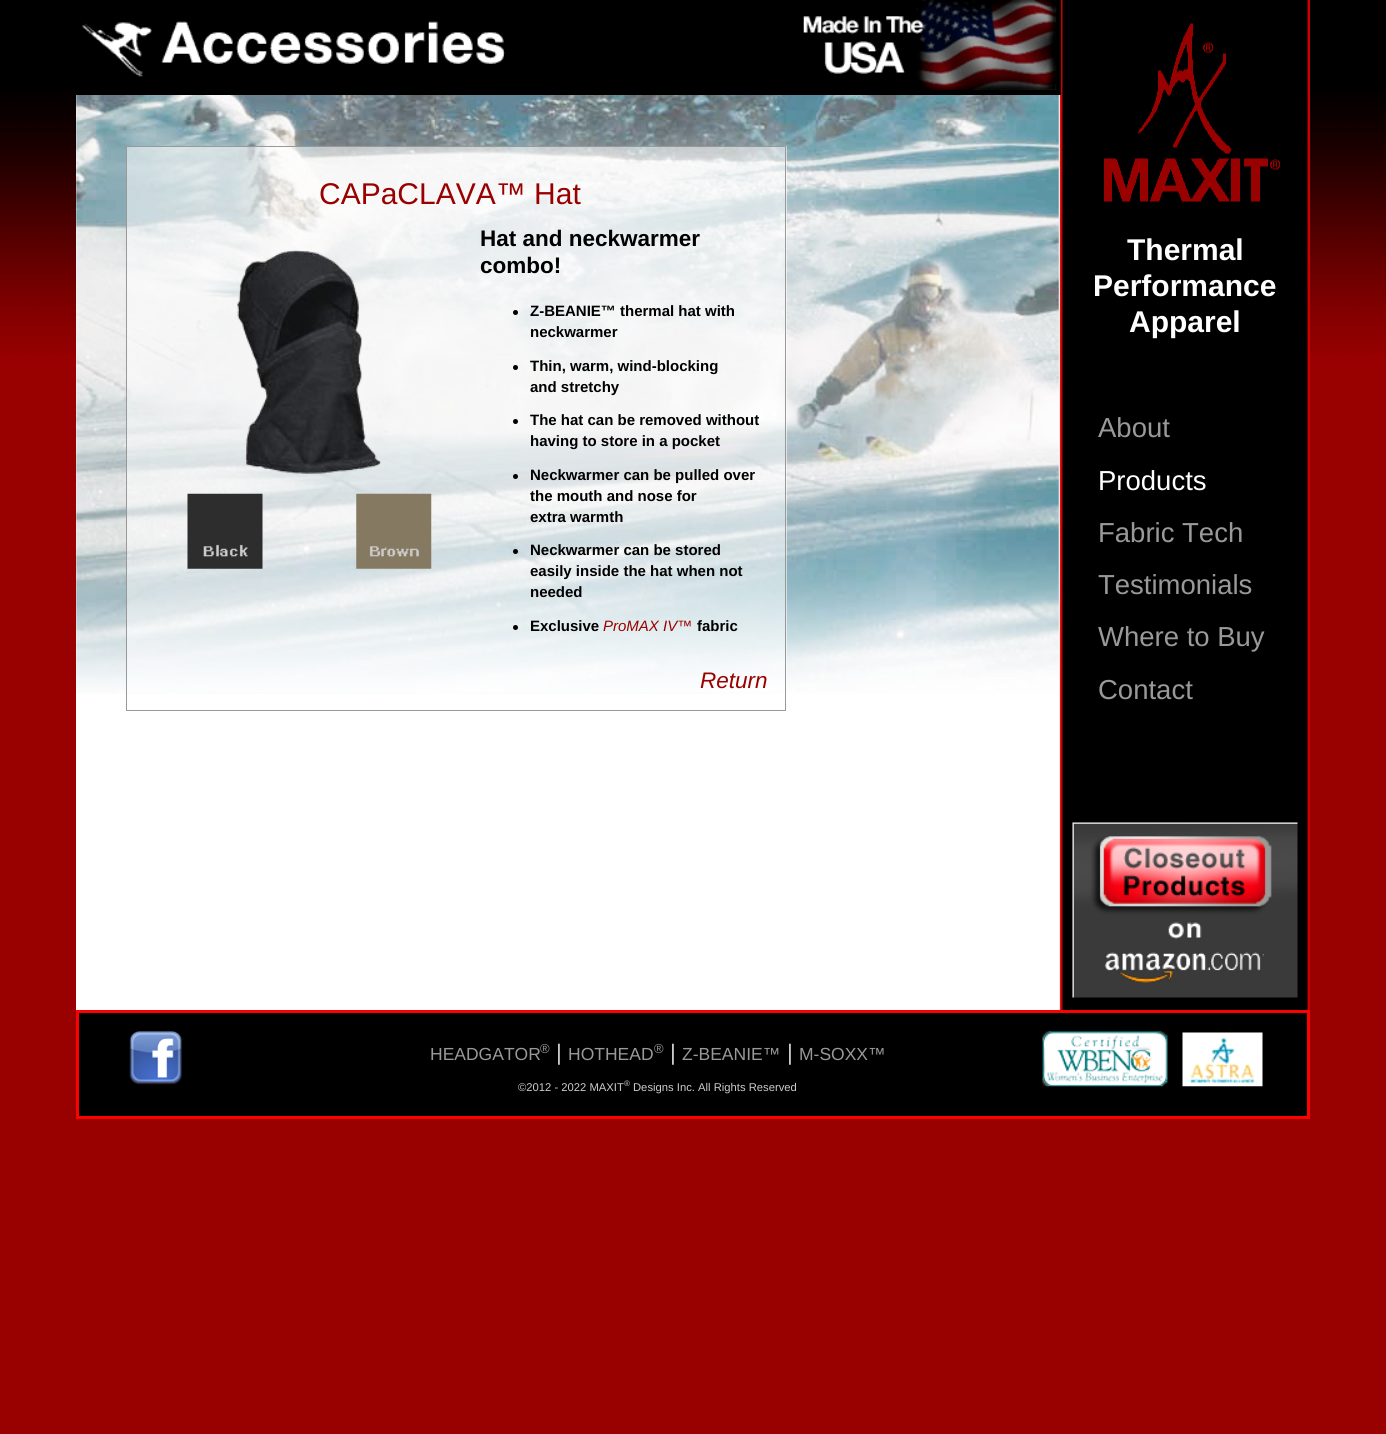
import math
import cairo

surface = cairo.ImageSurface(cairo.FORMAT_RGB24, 1386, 1434)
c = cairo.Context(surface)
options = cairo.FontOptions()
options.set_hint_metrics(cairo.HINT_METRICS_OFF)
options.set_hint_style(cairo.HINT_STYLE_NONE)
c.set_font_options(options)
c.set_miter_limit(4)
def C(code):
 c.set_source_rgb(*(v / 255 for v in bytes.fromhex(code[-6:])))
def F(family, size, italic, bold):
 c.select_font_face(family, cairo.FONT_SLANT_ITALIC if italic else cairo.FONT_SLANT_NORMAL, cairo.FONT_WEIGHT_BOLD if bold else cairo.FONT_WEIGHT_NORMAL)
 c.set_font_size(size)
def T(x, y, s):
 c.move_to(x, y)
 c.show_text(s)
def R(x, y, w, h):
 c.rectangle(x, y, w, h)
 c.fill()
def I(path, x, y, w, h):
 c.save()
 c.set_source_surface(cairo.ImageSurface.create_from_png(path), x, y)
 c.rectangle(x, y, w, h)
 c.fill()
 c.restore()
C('990000')
c.paint()
I('1.png',0,0,1386,355)
C('ffffff')
R(76,95,985,915)
I('2.png',1059,0,251,1010)
I('3.png',76,95,983,599)
C('000000')
R(76,0,985,95)
I('4.png',82,21,423,56)
I('5.png',803,0,254,90)
c.set_source_rgba(1,1,1,0.55)
R(127,146,660,546)
c.rectangle(126.5,146.5,659,564)
C('999999')
c.set_line_width(1)
c.stroke()
F('Liberation Sans',30,0,0)
C('990000')
T(319,204,'CAPaCLAVA™ Hat')
I('6.png',237,250,144,224)
I('7.png',187,493,76,76)
I('8.png',356,493,76,76)
F('Liberation Sans',22.5,0,1)
C('000000')
T(480,246,'Hat and neckwarmer')
T(480,273,'combo!')
c.new_path()
c.arc(515.5,312.5,2.5,0,2 * math.pi)
c.fill()
F('Liberation Sans',15,0,1)
T(530,316,'Z-BEANIE™ thermal hat with')
T(530,337,'neckwarmer')
c.new_path()
c.arc(515.5,367.5,2.5,0,2 * math.pi)
c.fill()
T(530,371,'Thin, warm, wind-blocking')
T(530,392,'and stretchy')
c.new_path()
c.arc(515.5,421.5,2.5,0,2 * math.pi)
c.fill()
T(530,425,'The hat can be removed without')
T(530,446,'having to store in a pocket')
c.new_path()
c.arc(515.5,476.5,2.5,0,2 * math.pi)
c.fill()
T(530,480,'Neckwarmer can be pulled over')
T(530,501,'the mouth and nose for')
T(530,522,'extra warmth')
c.new_path()
c.arc(515.5,551.5,2.5,0,2 * math.pi)
c.fill()
T(530,555,'Neckwarmer can be stored')
T(530,576,'easily inside the hat when not')
T(530,597,'needed')
c.new_path()
c.arc(515.5,627.5,2.5,0,2 * math.pi)
c.fill()
T(530,631,'Exclusive')
F('Liberation Sans',15,1,0)
C('990000')
T(603,631,'ProMAX IV™')
F('Liberation Sans',15,0,1)
C('000000')
T(697,631,'fabric')
F('Liberation Sans',22.5,1,0)
C('990000')
T(700,688,'Return')
I('9.png',1104,23,176,179)
F('Liberation Sans',30,0,1)
C('ffffff')
T(1127,260,'Thermal')
T(1093,296,'Performance')
T(1129,332,'Apparel')
F('Liberation Sans',27.5,0,0)
C('999999')
T(1098,437,'About')
C('ffffff')
T(1098,490,'Products')
C('999999')
T(1098,542,'Fabric Tech')
T(1098,594,'Testimonials')
T(1098,646,'Where to Buy')
T(1098,699,'Contact')
I('10.png',1072,822,226,176)
C('000000')
c.rectangle(77.5,1011.5,1231,106)
c.fill_preserve()
C('ff0000')
c.set_line_width(3)
c.stroke()
I('11.png',129,1031,53,54)
F('Liberation Sans',17.5,0,0)
C('999999')
T(430,1060,'HEADGATOR')
F('Liberation Sans',13,0,0)
T(540,1053,'®')
F('Liberation Sans',22.5,0,0)
C('cccccc')
T(556,1060,'|')
F('Liberation Sans',17.5,0,0)
C('999999')
T(568,1060,'HOTHEAD')
F('Liberation Sans',13,0,0)
T(654,1053,'®')
F('Liberation Sans',22.5,0,0)
C('cccccc')
T(670,1060,'|')
F('Liberation Sans',17.5,0,0)
C('999999')
T(682,1060,'Z-BEANIE™')
F('Liberation Sans',22.5,0,0)
C('cccccc')
T(787,1060,'|')
F('Liberation Sans',17.5,0,0)
C('999999')
T(799,1060,'M-SOXX™')
F('Liberation Sans',11.25,0,0)
C('cccccc')
T(518,1091,'©2012 - 2022 MAXIT')
F('Liberation Sans',8,0,0)
T(624,1086,'®')
F('Liberation Sans',11.25,0,0)
T(633,1091,'Designs Inc. All Rights Reserved')
I('12.png',1042,1031,126,56)
I('13.png',1182,1032,81,55)
surface.write_to_png('o.png')
